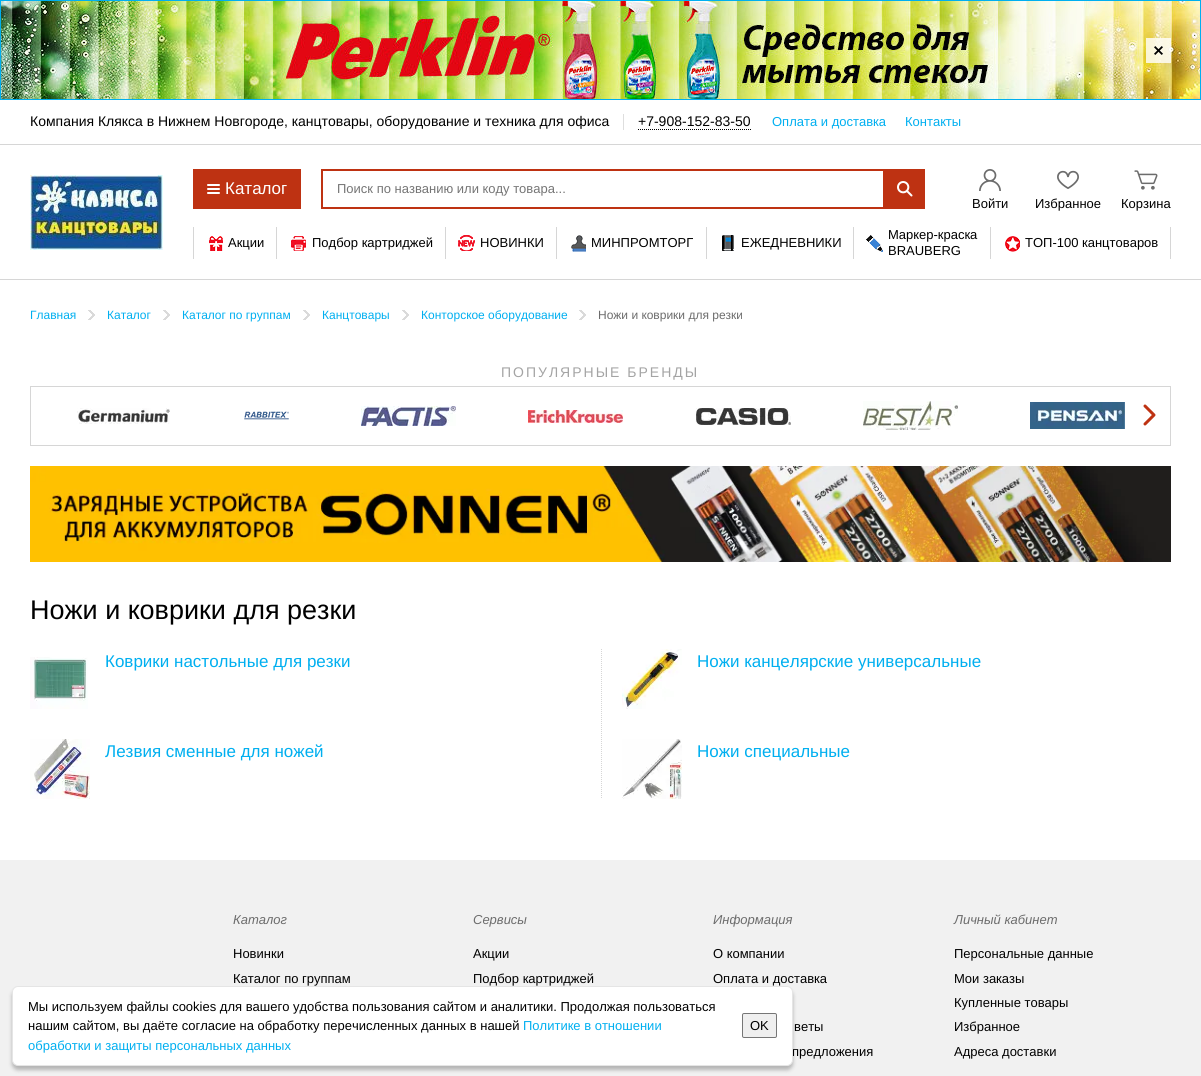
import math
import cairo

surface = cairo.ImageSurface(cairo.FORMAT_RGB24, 1201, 1076)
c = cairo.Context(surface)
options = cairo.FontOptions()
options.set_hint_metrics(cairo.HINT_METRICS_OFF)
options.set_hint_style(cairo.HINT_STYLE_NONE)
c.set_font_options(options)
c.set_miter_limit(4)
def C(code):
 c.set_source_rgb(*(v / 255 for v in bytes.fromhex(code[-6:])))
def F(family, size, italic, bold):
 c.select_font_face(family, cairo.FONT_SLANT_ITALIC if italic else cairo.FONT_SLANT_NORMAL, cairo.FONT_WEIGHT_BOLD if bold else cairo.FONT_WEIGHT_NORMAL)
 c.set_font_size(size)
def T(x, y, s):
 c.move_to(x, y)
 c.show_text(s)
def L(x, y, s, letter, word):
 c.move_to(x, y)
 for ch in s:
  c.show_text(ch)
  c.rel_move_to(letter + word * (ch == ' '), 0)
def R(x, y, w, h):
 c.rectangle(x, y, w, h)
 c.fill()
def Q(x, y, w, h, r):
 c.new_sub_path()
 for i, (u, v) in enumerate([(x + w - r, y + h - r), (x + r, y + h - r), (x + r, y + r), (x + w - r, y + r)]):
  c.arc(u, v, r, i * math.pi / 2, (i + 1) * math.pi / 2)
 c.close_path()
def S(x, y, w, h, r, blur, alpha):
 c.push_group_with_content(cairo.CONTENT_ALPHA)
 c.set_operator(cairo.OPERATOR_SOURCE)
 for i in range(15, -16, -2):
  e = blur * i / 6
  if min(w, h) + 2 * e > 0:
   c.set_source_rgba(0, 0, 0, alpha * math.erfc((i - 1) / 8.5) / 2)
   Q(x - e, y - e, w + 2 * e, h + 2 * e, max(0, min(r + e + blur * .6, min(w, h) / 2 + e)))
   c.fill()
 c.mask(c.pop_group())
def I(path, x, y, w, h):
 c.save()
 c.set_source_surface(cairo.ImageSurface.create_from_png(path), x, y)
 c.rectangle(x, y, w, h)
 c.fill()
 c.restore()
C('ffffff')
c.paint()
I('1.png',1,1,1199,98)
c.rectangle(.5,.5,1200,99)
C('00aff0')
c.set_line_width(1)
c.stroke()
c.set_source_rgba(1,1,1,0.8)
R(1146,38,25,25)
I('2.png',1154,46,9,9)
C('d6d6d6')
R(0,144,1201,1)
F('Liberation Sans',14,0,0)
C('000000')
T(30,126,'Компания Клякса в Нижнем Новгороде, канцтовары, оборудование и техника для офиса')
C('dedede')
R(623,114,1,16)
C('000000')
T(638,126,'+7-908-152-83-50')
c.new_path()
c.move_to(638,129.5)
c.line_to(751,129.5)
c.set_dash([1,1])
c.stroke()
F('Liberation Sans',13,0,0)
C('00aff0')
T(772,126,'Оплата и доставка')
T(905,126,'Контакты')
C('d6d6d6')
R(0,279,1201,1)
I('3.png',30,175,133,75)
C('be3212')
R(193,169,108,40)
C('ffffff')
Q(207,188,13,2,1)
c.fill()
Q(207,184,13,2,1)
c.fill()
Q(207,192,13,2,1)
c.fill()
F('Liberation Sans',17,0,0)
T(225,194,'Каталог')
c.rectangle(322,170,602,38)
C('be3212')
c.set_line_width(2)
c.set_dash([])
c.stroke()
F('Liberation Sans',13,0,0)
C('757575')
T(337,193,'Поиск по названию или коду товара...')
C('be3212')
R(883,171,40,36)
I('4.png',897,181,16,16)
I('5.png',979,169,22,22)
C('000000')
T(972,208,'Войти')
I('6.png',1057,170,22,19)
T(1035,208,'Избранное')
I('7.png',1134,170,24,20)
T(1121,208,'Корзина')
C('d6d6d6')
R(276,227,1,32)
R(193,227,1,32)
I('8.png',209,236,14,15)
C('000000')
T(228,247,'Акции')
C('d6d6d6')
R(445,227,1,32)
I('9.png',291,236,15,15)
C('000000')
T(312,247,'Подбор картриджей')
C('d6d6d6')
R(556,227,1,32)
I('10.png',458,235,17,16)
C('000000')
T(480,247,'НОВИНКИ')
C('d6d6d6')
R(706,227,1,32)
I('11.png',571,235,15,17)
C('000000')
T(591,247,'МИНПРОМТОРГ')
C('d6d6d6')
R(853,227,1,32)
I('12.png',722,235,12,16)
C('000000')
T(741,247,'ЕЖЕДНЕВНИКИ')
C('d6d6d6')
R(990,227,1,32)
I('13.png',866,235,17,17)
C('000000')
T(888,239,'Маркер-краска')
T(888,255,'BRAUBERG')
C('d6d6d6')
R(1170,227,1,32)
I('14.png',1005,236,15,16)
C('000000')
T(1025,247,'ТОП-100 канцтоваров')
F('Liberation Sans',12,0,0)
C('00aff0')
T(30,319,'Главная')
I('15.png',88,310,7,10)
T(107,319,'Каталог')
I('15.png',163,310,7,10)
T(182,319,'Каталог по группам')
I('15.png',303,310,7,10)
T(322,319,'Канцтовары')
I('15.png',402,310,7,10)
T(421,319,'Конторское оборудование')
I('15.png',579,310,7,10)
C('6c6c6c')
T(598,319,'Ножи и коврики для резки')
F('Liberation Sans',14,0,0)
C('a4a4a4')
L(501,377,'ПОПУЛЯРНЫЕ БРЕНДЫ',2,0)
c.rectangle(30.5,386.5,1140,59)
C('d6d6d6')
c.set_line_width(1)
c.stroke()
I('16.png',77,408,93,16)
I('17.png',244,411,45,9)
I('18.png',361,406,95,20)
I('19.png',528,410,95,13)
I('20.png',696,408,95,17)
I('21.png',863,401,95,29)
I('22.png',1030,402,95,27)
I('23.png',1143,404,13,22)
I('24.png',30,466,1141,96)
F('Liberation Sans',27,0,0)
C('000000')
T(30,619,'Ножи и коврики для резки')
I('25.png',30,657,58,52)
F('Liberation Sans',17,0,0)
C('00aff0')
T(105,667,'Коврики настольные для резки')
I('26.png',30,739,60,60)
T(105,757,'Лезвия сменные для ножей')
c.new_path()
c.move_to(601.5,649)
c.line_to(601.5,799)
C('d6d6d6')
c.set_dash([1,1])
c.stroke()
I('27.png',622,649,60,60)
C('00aff0')
T(697,667,'Ножи канцелярские универсальные')
I('28.png',622,739,60,60)
T(697,757,'Ножи специальные')
C('f1f1f1')
R(0,860,1201,216)
F('Liberation Sans',13,1,0)
C('6c6c6c')
T(233,924,'Каталог')
F('Liberation Sans',13,0,0)
C('000000')
T(233,958,'Новинки')
T(233,983,'Каталог по группам')
F('Liberation Sans',13,1,0)
C('6c6c6c')
T(473,924,'Сервисы')
F('Liberation Sans',13,0,0)
C('000000')
T(473,958,'Акции')
T(473,983,'Подбор картриджей')
F('Liberation Sans',13,1,0)
C('6c6c6c')
T(713,924,'Информация')
F('Liberation Sans',13,0,0)
C('000000')
T(713,958,'О компании')
T(713,983,'Оплата и доставка')
T(794,1031,'веты')
T(792,1056,'предложения')
F('Liberation Sans',13,1,0)
C('6c6c6c')
T(954,924,'Личный кабинет')
F('Liberation Sans',13,0,0)
C('000000')
T(954,958,'Персональные данные')
T(954,983,'Мои заказы')
T(954,1007,'Купленные товары')
T(954,1031,'Избранное')
T(954,1056,'Адреса доставки')
C('000000')
S(12,990,781,80,6,2,.25)
C('ffffff')
Q(12.5,986.5,780,79,5.5)
c.fill_preserve()
C('e5e5e5')
c.set_dash([])
c.stroke()
C('000000')
T(28,1011,'Мы используем файлы cookies для вашего удобства пользования сайтом и аналитики. Продолжая пользоваться')
T(28,1030,'нашим сайтом, вы даёте согласие на обработку перечисленных данных в нашей')
C('00aff0')
T(523,1030,'Политике в отношении')
T(28,1050,'обработки и защиты персональных данных')
C('efefef')
Q(742.5,1013.5,34,24,1.5)
c.fill_preserve()
C('767676')
c.stroke()
C('000000')
T(750,1030,'OK')
surface.write_to_png('o.png')
